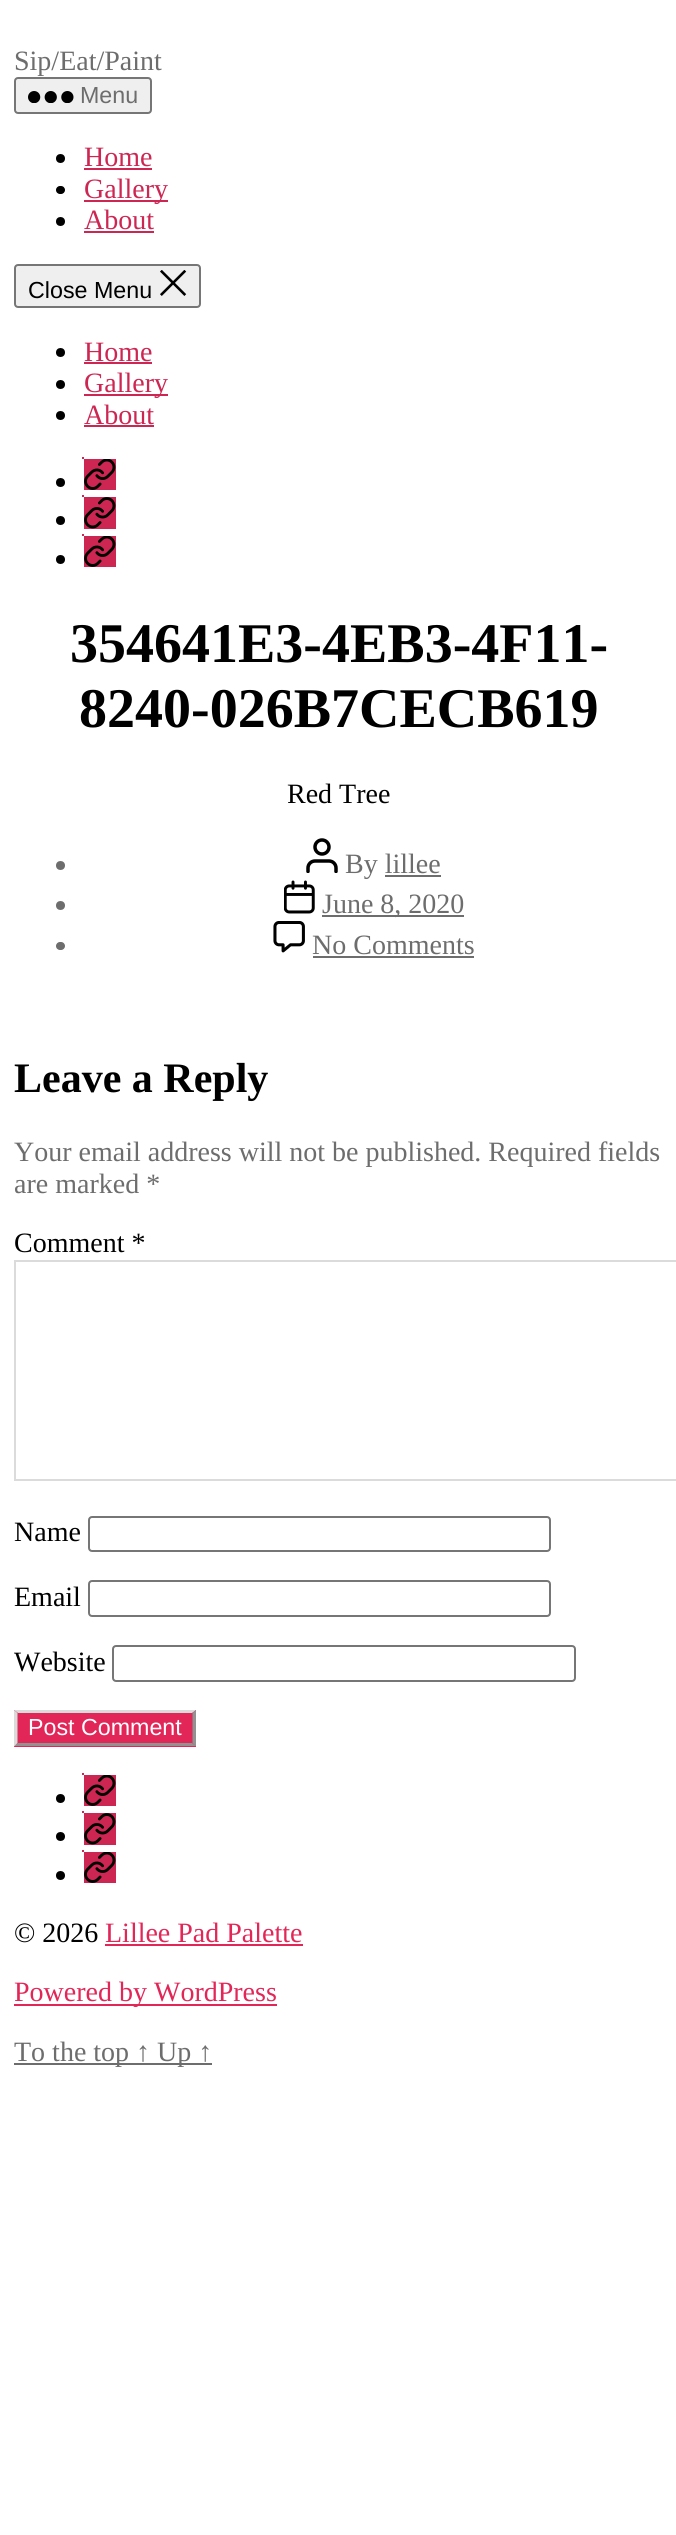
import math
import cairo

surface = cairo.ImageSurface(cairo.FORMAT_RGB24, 676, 2535)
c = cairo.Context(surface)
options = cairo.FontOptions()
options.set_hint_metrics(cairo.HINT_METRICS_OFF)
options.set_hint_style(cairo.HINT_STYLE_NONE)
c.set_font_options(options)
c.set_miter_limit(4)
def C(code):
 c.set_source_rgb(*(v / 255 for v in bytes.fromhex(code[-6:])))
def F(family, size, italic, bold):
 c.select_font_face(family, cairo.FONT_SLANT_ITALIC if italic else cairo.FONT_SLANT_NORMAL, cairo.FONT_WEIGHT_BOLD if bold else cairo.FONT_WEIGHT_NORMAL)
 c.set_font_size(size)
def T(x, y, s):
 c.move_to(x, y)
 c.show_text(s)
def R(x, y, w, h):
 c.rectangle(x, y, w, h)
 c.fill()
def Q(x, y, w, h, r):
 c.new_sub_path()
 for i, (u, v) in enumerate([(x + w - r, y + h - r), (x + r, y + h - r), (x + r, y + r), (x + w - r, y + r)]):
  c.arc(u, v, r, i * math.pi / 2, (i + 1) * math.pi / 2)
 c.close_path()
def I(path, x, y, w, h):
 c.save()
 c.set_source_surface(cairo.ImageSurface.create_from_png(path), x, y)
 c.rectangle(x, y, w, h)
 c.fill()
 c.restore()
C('ffffff')
c.paint()
F('Liberation Serif',28,0,0)
C('6d6d6d')
T(14,70,'Sip/Eat/Paint')
C('efefef')
Q(15,78,136,35,3)
c.fill_preserve()
C('767676')
c.stroke()
I('1.png',28,91,46,12)
F('Liberation Sans',23.25,0,0)
C('6d6d6d')
T(80,103,'Menu')
C('000000')
c.new_path()
c.arc(60.5,158.5,4.5,0,2 * math.pi)
c.fill()
F('Liberation Serif',28,0,0)
C('cd2653')
T(84,166,'Home')
R(84,168,68,2)
C('000000')
Q(56,186,9,8,4)
c.fill()
C('cd2653')
R(84,200,84,2)
T(84,198,'Gallery')
C('000000')
c.new_path()
c.arc(60.5,221.5,4.5,0,2 * math.pi)
c.fill()
C('cd2653')
T(84,229,'About')
R(84,231,70,2)
C('efefef')
Q(15,265,185,42,3)
c.fill_preserve()
C('767676')
c.stroke()
F('Liberation Sans',23.25,0,0)
C('000000')
T(28,298,'Close Menu')
I('2.png',160,270,27,26)
c.arc(60.5,352.5,4.5,0,2 * math.pi)
c.fill()
F('Liberation Serif',28,0,0)
C('cd2653')
T(84,361,'Home')
R(84,362,68,2)
C('000000')
c.new_path()
c.arc(60.5,384.5,4.5,0,2 * math.pi)
c.fill()
C('cd2653')
R(84,394,84,2)
T(84,392,'Gallery')
C('000000')
c.new_path()
c.arc(60.5,415.5,4.5,0,2 * math.pi)
c.fill()
C('cd2653')
T(84,424,'About')
R(84,425,70,2)
R(82,457,2,2)
R(84,459,32,31)
C('000000')
c.new_path()
c.arc(60.5,482.5,4.5,0,2 * math.pi)
c.fill()
I('3.png',84,459,32,31)
C('cd2653')
R(82,495,2,2)
R(84,497,32,32)
C('000000')
c.arc(60.5,520.5,4.5,0,2 * math.pi)
c.fill()
I('4.png',84,497,32,32)
C('cd2653')
R(82,534,2,2)
R(84,536,32,31)
C('000000')
c.arc(60.5,559.5,4.5,0,2 * math.pi)
c.fill()
I('3.png',84,536,32,31)
F('Liberation Serif',56,0,1)
T(70,662,'354641E3-4EB3-4F11-')
T(79,727,'8240-026B7CECB619')
F('Liberation Serif',28,0,0)
T(287,803,'Red Tree')
C('6d6d6d')
c.new_path()
c.arc(60.5,865.5,4.5,0,2 * math.pi)
c.fill()
I('5.png',306,838,32,35)
T(345,873,'By lillee')
R(385,875,56,2)
c.new_path()
c.arc(60.5,905.5,4.5,0,2 * math.pi)
c.fill()
I('6.png',284,880,31,34)
R(322,915,142,2)
T(322,913,'June 8, 2020')
Q(56,942,9,8,4)
c.fill()
I('7.png',273,921,32,32)
T(312,954,'No Comments')
R(313,956,161,2)
F('Liberation Serif',42,0,1)
C('000000')
T(14,1092,'Leave a Reply')
F('Liberation Serif',28,0,0)
C('6d6d6d')
T(14,1161,'Your email address will not be published. Required fields')
T(14,1193,'are marked *')
C('000000')
T(14,1252,'Comment *')
c.rectangle(15,1261,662,219)
C('dbdbdb')
c.stroke()
C('000000')
T(14,1541,'Name')
Q(89,1517,461,34,3)
C('767676')
c.stroke()
C('000000')
T(14,1606,'Email')
Q(89,1581,461,35,3)
C('767676')
c.stroke()
C('000000')
T(14,1671,'Website')
Q(113,1646,462,35,3)
C('767676')
c.stroke()
C('e22658')
R(14,1710,182,37)
C('dbdbdb')
c.new_path()
c.move_to(14,1710)
c.line_to(196,1710)
c.line_to(192,1713)
c.line_to(18,1713)
c.close_path()
c.fill()
C('929292')
c.new_path()
c.move_to(196,1710)
c.line_to(196,1746.5)
c.line_to(192.5,1743)
c.line_to(192.5,1713)
c.close_path()
c.fill()
c.new_path()
c.move_to(196,1746)
c.line_to(14,1746)
c.line_to(18,1743)
c.line_to(192,1743)
c.close_path()
c.fill()
C('dbdbdb')
c.new_path()
c.move_to(14,1746.5)
c.line_to(14,1710)
c.line_to(17.5,1713)
c.line_to(17.5,1743)
c.close_path()
c.fill()
F('Liberation Sans',23.25,0,0)
C('ffffff')
T(28,1735,'Post Comment')
C('cd2653')
R(82,1773,2,2)
R(84,1775,32,31)
C('000000')
c.new_path()
c.arc(60.5,1798.5,4.5,0,2 * math.pi)
c.fill()
I('3.png',84,1775,32,31)
C('cd2653')
R(82,1811,2,2)
R(84,1813,32,32)
C('000000')
c.arc(60.5,1836.5,4.5,0,2 * math.pi)
c.fill()
I('4.png',84,1813,32,32)
C('cd2653')
R(82,1850,2,2)
R(84,1852,32,31)
C('000000')
c.arc(60.5,1875.5,4.5,0,2 * math.pi)
c.fill()
I('3.png',84,1852,32,31)
F('Liberation Serif',28,0,0)
T(14,1942,'© 2026')
C('e22658')
T(105,1942,'Lillee Pad Palette')
R(105,1944,198,2)
R(14,2004,263,2)
T(14,2001,'Powered by WordPress')
C('6d6d6d')
R(14,2063,198,2)
T(14,2061,'To the top ↑ Up ↑')
surface.write_to_png('o.png')
